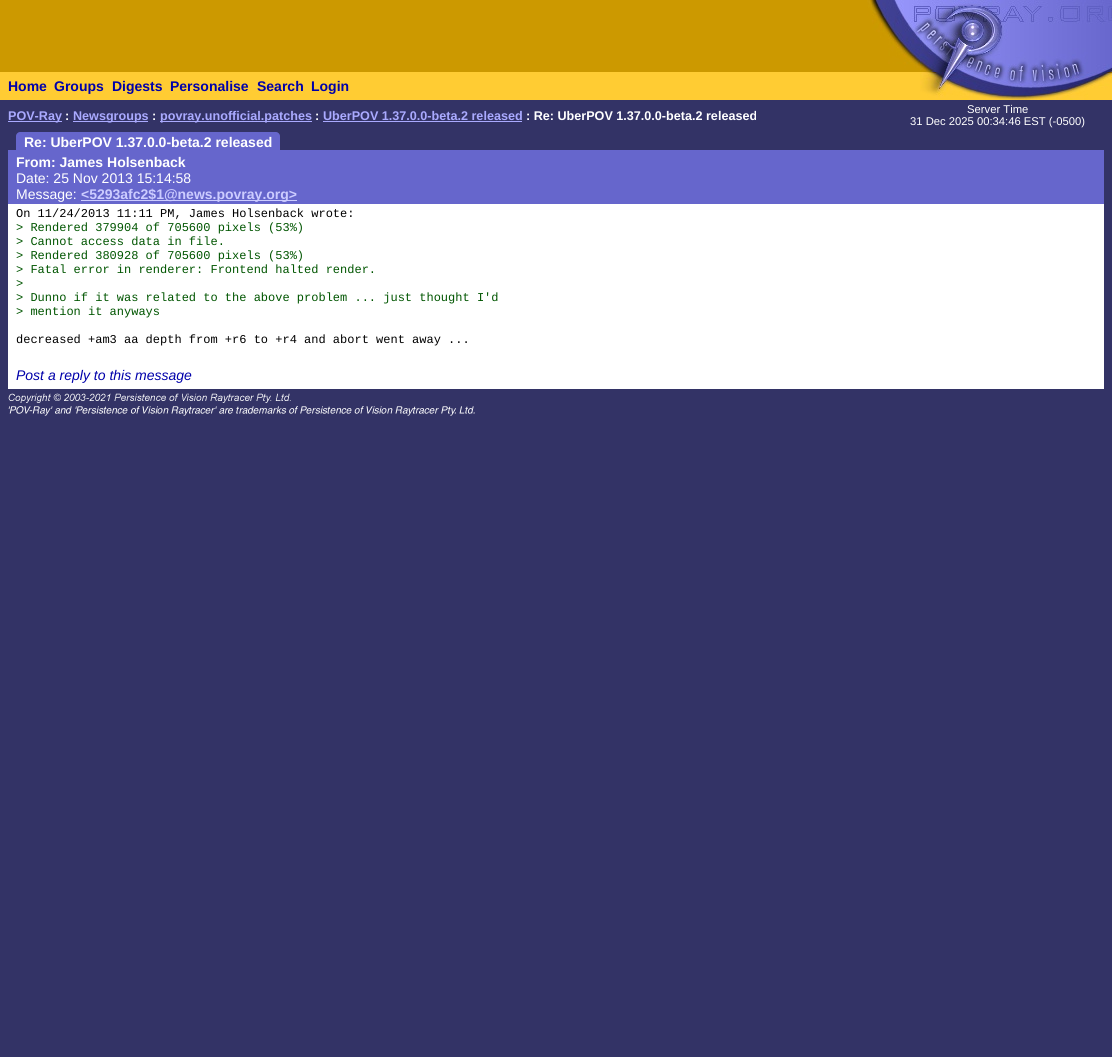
import math
import cairo

surface = cairo.ImageSurface(cairo.FORMAT_RGB24, 1112, 1057)
c = cairo.Context(surface)
options = cairo.FontOptions()
options.set_hint_metrics(cairo.HINT_METRICS_OFF)
options.set_hint_style(cairo.HINT_STYLE_NONE)
c.set_font_options(options)
c.set_miter_limit(4)
def C(code):
 c.set_source_rgb(*(v / 255 for v in bytes.fromhex(code[-6:])))
def F(family, size, italic, bold):
 c.select_font_face(family, cairo.FONT_SLANT_ITALIC if italic else cairo.FONT_SLANT_NORMAL, cairo.FONT_WEIGHT_BOLD if bold else cairo.FONT_WEIGHT_NORMAL)
 c.set_font_size(size)
def T(x, y, s):
 c.move_to(x, y)
 c.show_text(s)
def R(x, y, w, h):
 c.rectangle(x, y, w, h)
 c.fill()
def I(path, x, y, w, h):
 c.save()
 c.set_source_surface(cairo.ImageSurface.create_from_png(path), x, y)
 c.rectangle(x, y, w, h)
 c.fill()
 c.restore()
C('333366')
c.paint()
C('cc9900')
R(0,0,920,72)
I('1.png',867,0,53,68)
I('2.png',920,0,40,72)
I('3.png',960,0,152,72)
C('ffcc33')
R(0,72,920,28)
F('Liberation Sans',14,0,1)
C('0000aa')
T(8,91,'Home')
T(54,91,'Groups')
T(112,91,'Digests')
T(170,91,'Personalise')
T(257,91,'Search')
T(311,91,'Login')
C('ffcc33')
R(920,98,40,2)
I('4.png',920,72,40,26)
I('5.png',960,72,152,28)
C('aaaaff')
R(8,121,54,1)
F('Liberation Sans',12.6,0,1)
T(8,120,'POV-Ray')
C('ffffff')
T(65,120,':')
C('aaaaff')
R(73,121,75,1)
T(73,120,'Newsgroups')
C('ffffff')
T(152,120,':')
C('aaaaff')
R(160,121,152,1)
T(160,120,'povray.unofficial.patches')
C('ffffff')
T(315,120,':')
C('aaaaff')
T(323,120,'UberPOV 1.37.0.0-beta.2 released')
R(323,121,199,1)
C('ffffff')
T(526,120,': Re: UberPOV 1.37.0.0-beta.2 released')
F('Liberation Sans',11.25,0,0)
T(967,113,'Server Time')
T(910,125,'31 Dec 2025 00:34:46 EST (-0500)')
C('6666cc')
c.new_path()
c.move_to(20,132)
c.line_to(276,132)
c.curve_to(278,132,280,134,280,136)
c.line_to(280,150)
c.line_to(16,150)
c.line_to(16,136)
c.curve_to(16,134,18,132,20,132)
c.close_path()
c.fill()
F('Liberation Sans',14,0,1)
C('ffffff')
T(24,147,'Re: UberPOV 1.37.0.0-beta.2 released')
C('6666cc')
R(8,150,1096,4)
R(8,154,1096,50)
C('ffffff')
T(16,167,'From: James Holsenback')
F('Liberation Sans',14,0,0)
T(16,183,'Date: 25 Nov 2013 15:14:58')
T(16,199,'Message:')
C('ccccff')
R(81,200,216,1)
F('Liberation Sans',14,0,1)
T(81,199,'<5293afc2$1@news.povray.org>')
C('ffffff')
R(8,204,1096,2)
R(8,206,1096,183)
F('Liberation Mono',12,0,0)
C('000000')
T(16,217,'On 11/24/2013 11:11 PM, James Holsenback wrote:')
C('005500')
T(16,231,'> Rendered 379904 of 705600 pixels (53%)')
T(16,245,'> Cannot access data in file.')
T(16,259,'> Rendered 380928 of 705600 pixels (53%)')
T(16,273,'> Fatal error in renderer: Frontend halted render.')
T(16,287,'>')
T(16,301,'> Dunno if it was related to the above problem ... just thought I\'d')
T(16,315,'> mention it anyways')
C('000000')
T(16,343,'decreased +am3 aa depth from +r6 to +r4 and abort went away ...')
F('Liberation Sans',14,1,0)
C('0000aa')
T(16,380,'Post a reply to this message')
I('6.png',8,393,467,23)
surface.write_to_png('o.png')
